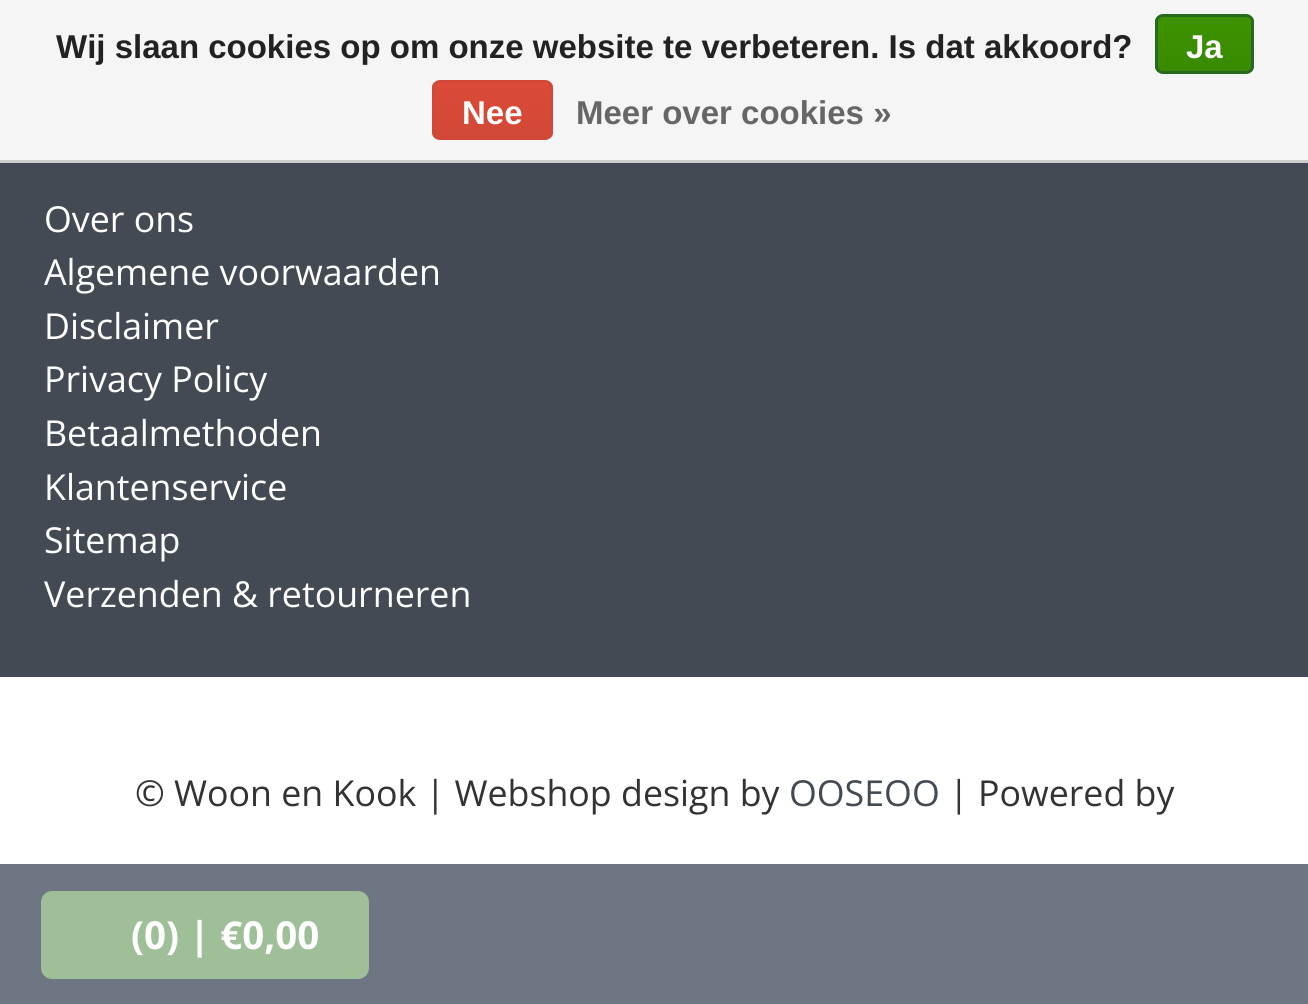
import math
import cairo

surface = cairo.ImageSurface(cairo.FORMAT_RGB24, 1308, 1004)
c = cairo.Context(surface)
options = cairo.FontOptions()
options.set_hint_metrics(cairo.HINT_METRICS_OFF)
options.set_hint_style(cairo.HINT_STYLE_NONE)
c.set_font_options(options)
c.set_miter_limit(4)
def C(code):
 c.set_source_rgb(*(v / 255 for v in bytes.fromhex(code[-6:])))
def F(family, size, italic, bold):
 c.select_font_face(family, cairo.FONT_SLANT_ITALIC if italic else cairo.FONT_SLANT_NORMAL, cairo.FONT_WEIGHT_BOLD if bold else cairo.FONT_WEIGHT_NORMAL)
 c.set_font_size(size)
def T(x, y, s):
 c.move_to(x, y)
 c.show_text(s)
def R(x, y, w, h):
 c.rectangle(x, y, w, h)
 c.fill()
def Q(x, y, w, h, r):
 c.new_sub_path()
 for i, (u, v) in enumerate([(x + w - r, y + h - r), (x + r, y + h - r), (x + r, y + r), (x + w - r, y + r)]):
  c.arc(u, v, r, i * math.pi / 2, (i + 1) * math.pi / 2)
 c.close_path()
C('ffffff')
c.paint()
C('f5f5f5')
R(0,0,1308,160)
C('cccccc')
R(0,160,1308,3)
F('Liberation Sans',33,0,1)
C('222222')
T(56,58,'Wij slaan cookies op om onze website te verbeteren. Is dat akkoord?')
c.save()
Q(1155,14,99,60,8)
c.clip()
gradient = cairo.LinearGradient(1205,16,1205,72)
gradient.add_color_stop_rgba(0,0.235,0.576,0,1)
gradient.add_color_stop_rgba(1,0.224,0.541,0,1)
c.set_source(gradient)
R(1155,17,99,55)
c.restore()
Q(1156.5,15.5,96,57,6.5)
C('29691d')
c.set_line_width(3)
c.stroke()
C('ffffff')
T(1186,58,'Ja')
c.save()
Q(432,80,121,60,8)
c.clip()
gradient = cairo.LinearGradient(492,83,492,138)
gradient.add_color_stop_rgba(0,0.863,0.29,0.22,1)
gradient.add_color_stop_rgba(1,0.82,0.282,0.212,1)
c.set_source(gradient)
R(432,83,121,55)
c.restore()
Q(433.5,81.5,118,57,6.5)
C('d14836')
c.stroke()
C('ffffff')
T(462,124,'Nee')
C('666666')
T(576,124,'Meer over cookies »')
C('434a54')
R(0,163,1308,514)
F('Open Sans',35.75,0,0)
C('ffffff')
T(44,232,'Over ons')
T(44,285,'Algemene voorwaarden')
T(44,339,'Disclaimer')
T(44,392,'Privacy Policy')
T(44,446,'Betaalmethoden')
T(44,500,'Klantenservice')
T(44,553,'Sitemap')
T(44,607,'Verzenden & retourneren')
C('333333')
T(135,806,'© Woon en Kook | Webshop design by')
C('434a54')
T(789,806,'OOSEOO')
C('333333')
T(949,806,'| Powered by')
C('6d7682')
R(0,864,1308,140)
C('9ebf98')
Q(41,891,328,88,11)
c.fill()
F('Open Sans',38.5,0,1)
C('ffffff')
T(131,949,'(0) | €0,00')
surface.write_to_png('o.png')
